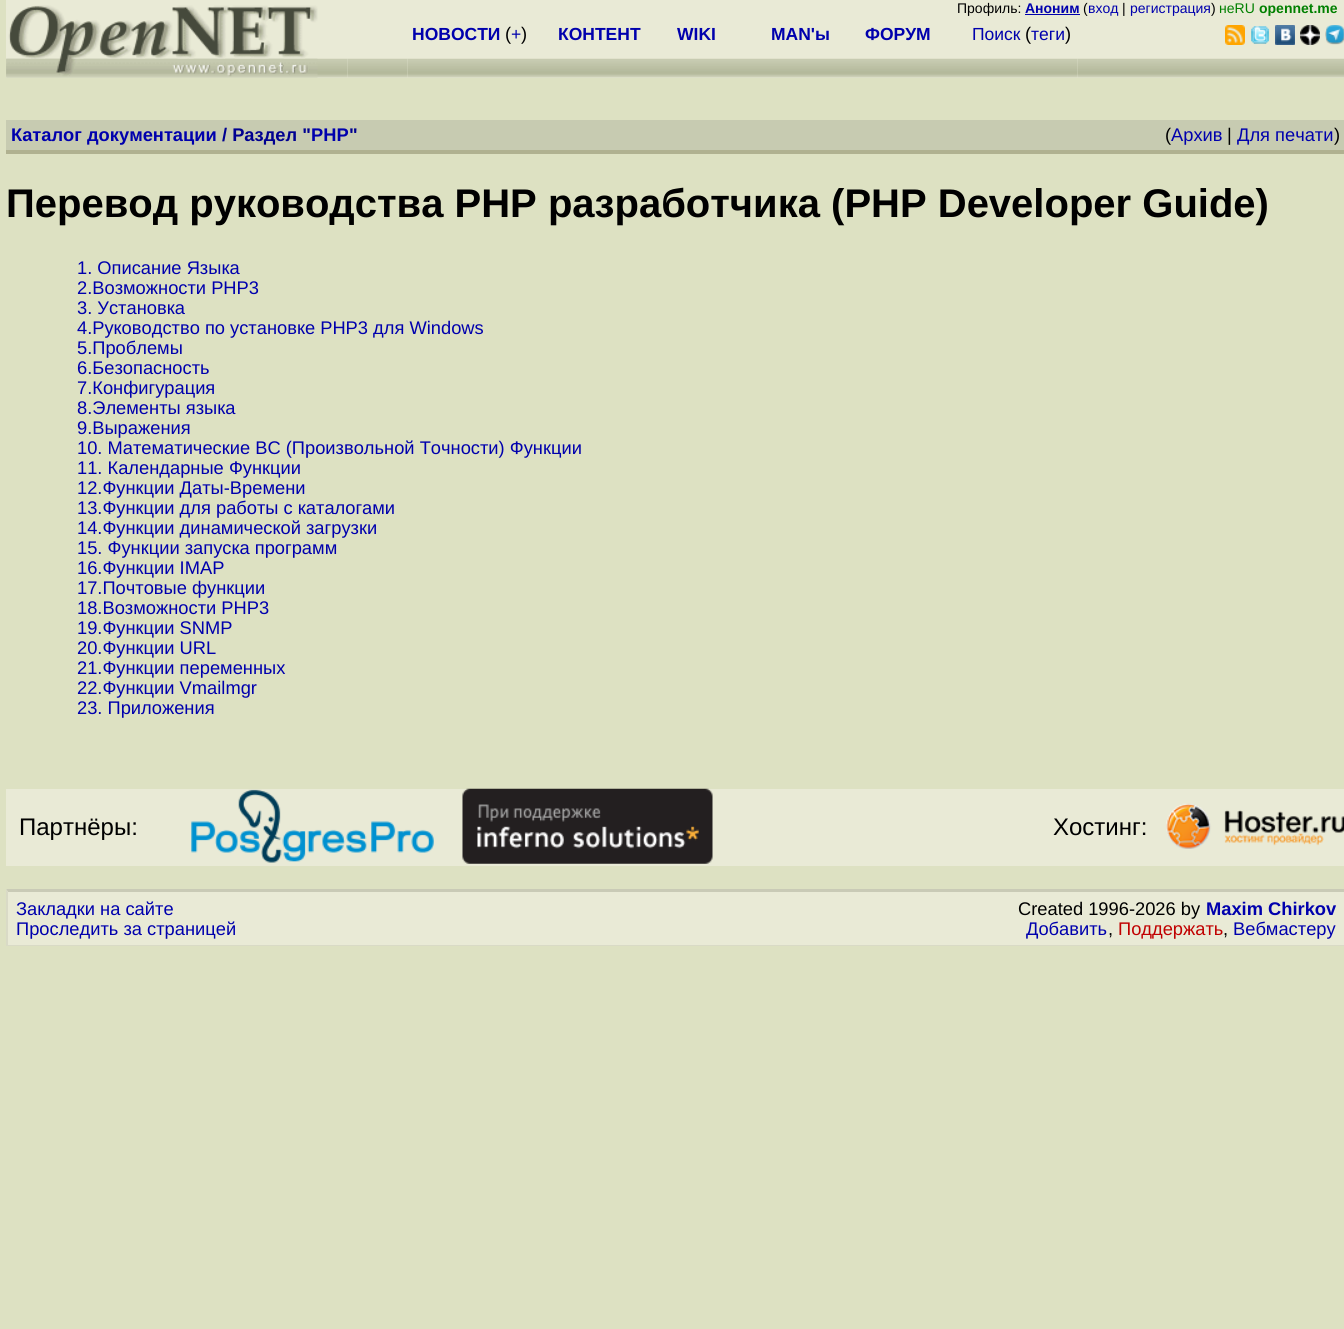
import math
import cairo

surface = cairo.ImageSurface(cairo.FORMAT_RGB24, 1344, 1329)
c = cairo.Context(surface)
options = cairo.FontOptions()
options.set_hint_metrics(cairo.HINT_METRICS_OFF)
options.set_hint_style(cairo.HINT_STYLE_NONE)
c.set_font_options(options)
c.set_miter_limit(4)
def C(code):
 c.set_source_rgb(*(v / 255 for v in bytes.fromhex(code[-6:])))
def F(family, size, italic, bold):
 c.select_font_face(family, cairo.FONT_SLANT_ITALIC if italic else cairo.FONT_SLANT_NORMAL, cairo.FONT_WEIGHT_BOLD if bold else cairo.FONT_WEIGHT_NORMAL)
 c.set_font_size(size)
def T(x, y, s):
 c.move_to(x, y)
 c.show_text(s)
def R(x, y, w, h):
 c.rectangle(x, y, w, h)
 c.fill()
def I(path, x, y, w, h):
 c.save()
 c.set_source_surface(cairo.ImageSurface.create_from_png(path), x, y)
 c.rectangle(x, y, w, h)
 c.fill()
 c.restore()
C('dde1c2')
c.paint()
C('e9ead6')
R(6,0,1338,3)
R(6,3,1338,75)
F('Liberation Sans',14,0,0)
C('000000')
T(957,13,'Профиль:')
F('Liberation Sans',14,0,1)
C('0000ad')
T(1025,13,'Аноним')
R(1025,14,55,1)
F('Liberation Sans',14,0,0)
C('000000')
T(1083,13,'(')
C('0000ad')
T(1088,13,'вход')
C('000000')
T(1122,13,'|')
C('0000ad')
T(1130,13,'регистрация')
C('000000')
T(1211,13,')')
C('008000')
T(1219,13,'неRU')
F('Liberation Sans',14,0,1)
T(1259,13,'opennet.me')
I('1.png',6,58,342,20)
I('2.png',6,5,312,73)
I('10.png',347,58,61,20)
I('3.png',407,58,671,20)
F('Liberation Sans',17.5,0,1)
C('0000ad')
T(412,40,'НОВОСТИ')
F('Liberation Sans',18.3,0,0)
C('000000')
T(505,40,'(')
F('Liberation Sans',17.5,0,0)
C('0000ad')
T(511,40,'+')
F('Liberation Sans',18.3,0,0)
C('000000')
T(521,40,')')
F('Liberation Sans',17.5,0,1)
C('0000ad')
T(558,40,'КОНТЕНТ')
T(677,40,'WIKI')
T(771,40,'MAN\'ы')
T(865,40,'ФОРУМ')
F('Liberation Sans',17.5,0,0)
T(972,40,'Поиск')
F('Liberation Sans',18.3,0,0)
C('000000')
T(1025,40,'(')
F('Liberation Sans',17.5,0,0)
C('0000ad')
T(1031,40,'теги')
F('Liberation Sans',18.3,0,0)
C('000000')
T(1065,40,')')
I('4.png',1077,58,267,20)
I('5.png',1225,25,20,20)
I('6.png',1251,26,18,18)
I('7.png',1275,25,20,20)
I('8.png',1300,25,20,20)
I('9.png',1325,25,19,20)
C('c7cbb1')
R(6,120,1338,30)
F('Liberation Sans',18.3,0,1)
C('0000ad')
T(11,141,'Каталог документации')
C('000090')
T(222,141,'/ Раздел "')
C('0000ad')
T(311,141,'PHP')
C('000090')
T(349,141,'"')
F('Liberation Sans',18.3,0,0)
C('000000')
T(1165,141,'(')
C('0000ad')
T(1171,141,'Архив')
C('000000')
T(1227,141,'|')
C('0000ad')
T(1237,141,'Для печати')
C('000000')
T(1334,141,')')
C('b0b190')
R(6,150,1338,4)
F('Liberation Sans',40,0,1)
C('000000')
T(6,217,'Перевод руководства PHP разработчика (PHP Developer Guide)')
F('Liberation Sans',18.3,0,0)
C('0000ad')
T(77,274,'1. Описание Языка')
T(77,294,'2.Возможности PHP3')
T(77,314,'3. Установка')
T(77,334,'4.Руководство по установке PHP3 для Windows')
T(77,354,'5.Проблемы')
T(77,374,'6.Безопасность')
T(77,394,'7.Конфигурация')
T(77,414,'8.Элементы языка')
T(77,434,'9.Выражения')
T(77,454,'10. Математические BC (Произвольной Точности) Функции')
T(77,474,'11. Календарные Функции')
T(77,494,'12.Функции Даты-Времени')
T(77,514,'13.Функции для работы с каталогами')
T(77,534,'14.Функции динамической загрузки')
T(77,554,'15. Функции запуска программ')
T(77,574,'16.Функции IMAP')
T(77,594,'17.Почтовые функции')
T(77,614,'18.Возможности PHP3')
T(77,634,'19.Функции SNMP')
T(77,654,'20.Функции URL')
T(77,674,'21.Функции переменных')
T(77,694,'22.Функции Vmailmgr')
T(77,714,'23. Приложения')
C('e9ead6')
R(6,789,1338,77)
F('Liberation Sans',24,0,0)
C('000000')
T(19,835,'Партнёры:')
I('11.png',191,789,243,74)
I('12.png',462,788,251,76)
T(1053,835,'Хостинг:')
I('13.png',1166,803,178,46)
C('e9ead6')
R(6,889,1338,56)
C('c9cab6')
c.new_path()
c.move_to(6,889)
c.line_to(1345,889)
c.line_to(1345,892)
c.line_to(8,892)
c.close_path()
c.fill()
C('d9dac6')
R(6,945,1338,1)
c.new_path()
c.move_to(6,946)
c.line_to(6,889)
c.line_to(8,892)
c.line_to(8,945)
c.close_path()
c.fill()
F('Liberation Sans',18.3,0,0)
C('0000ad')
T(16,915,'Закладки на сайте')
T(16,935,'Проследить за страницей')
C('000000')
T(1018,915,'Created 1996-2026 by')
F('Liberation Sans',18.3,0,1)
C('0000ad')
T(1206,915,'Maxim Chirkov')
F('Liberation Sans',18.3,0,0)
T(1026,935,'Добавить')
C('000000')
T(1108,935,',')
C('c00000')
T(1118,935,'Поддержать')
C('000000')
T(1223,935,',')
C('0000ad')
T(1233,935,'Вебмастеру')
surface.write_to_png('o.png')
